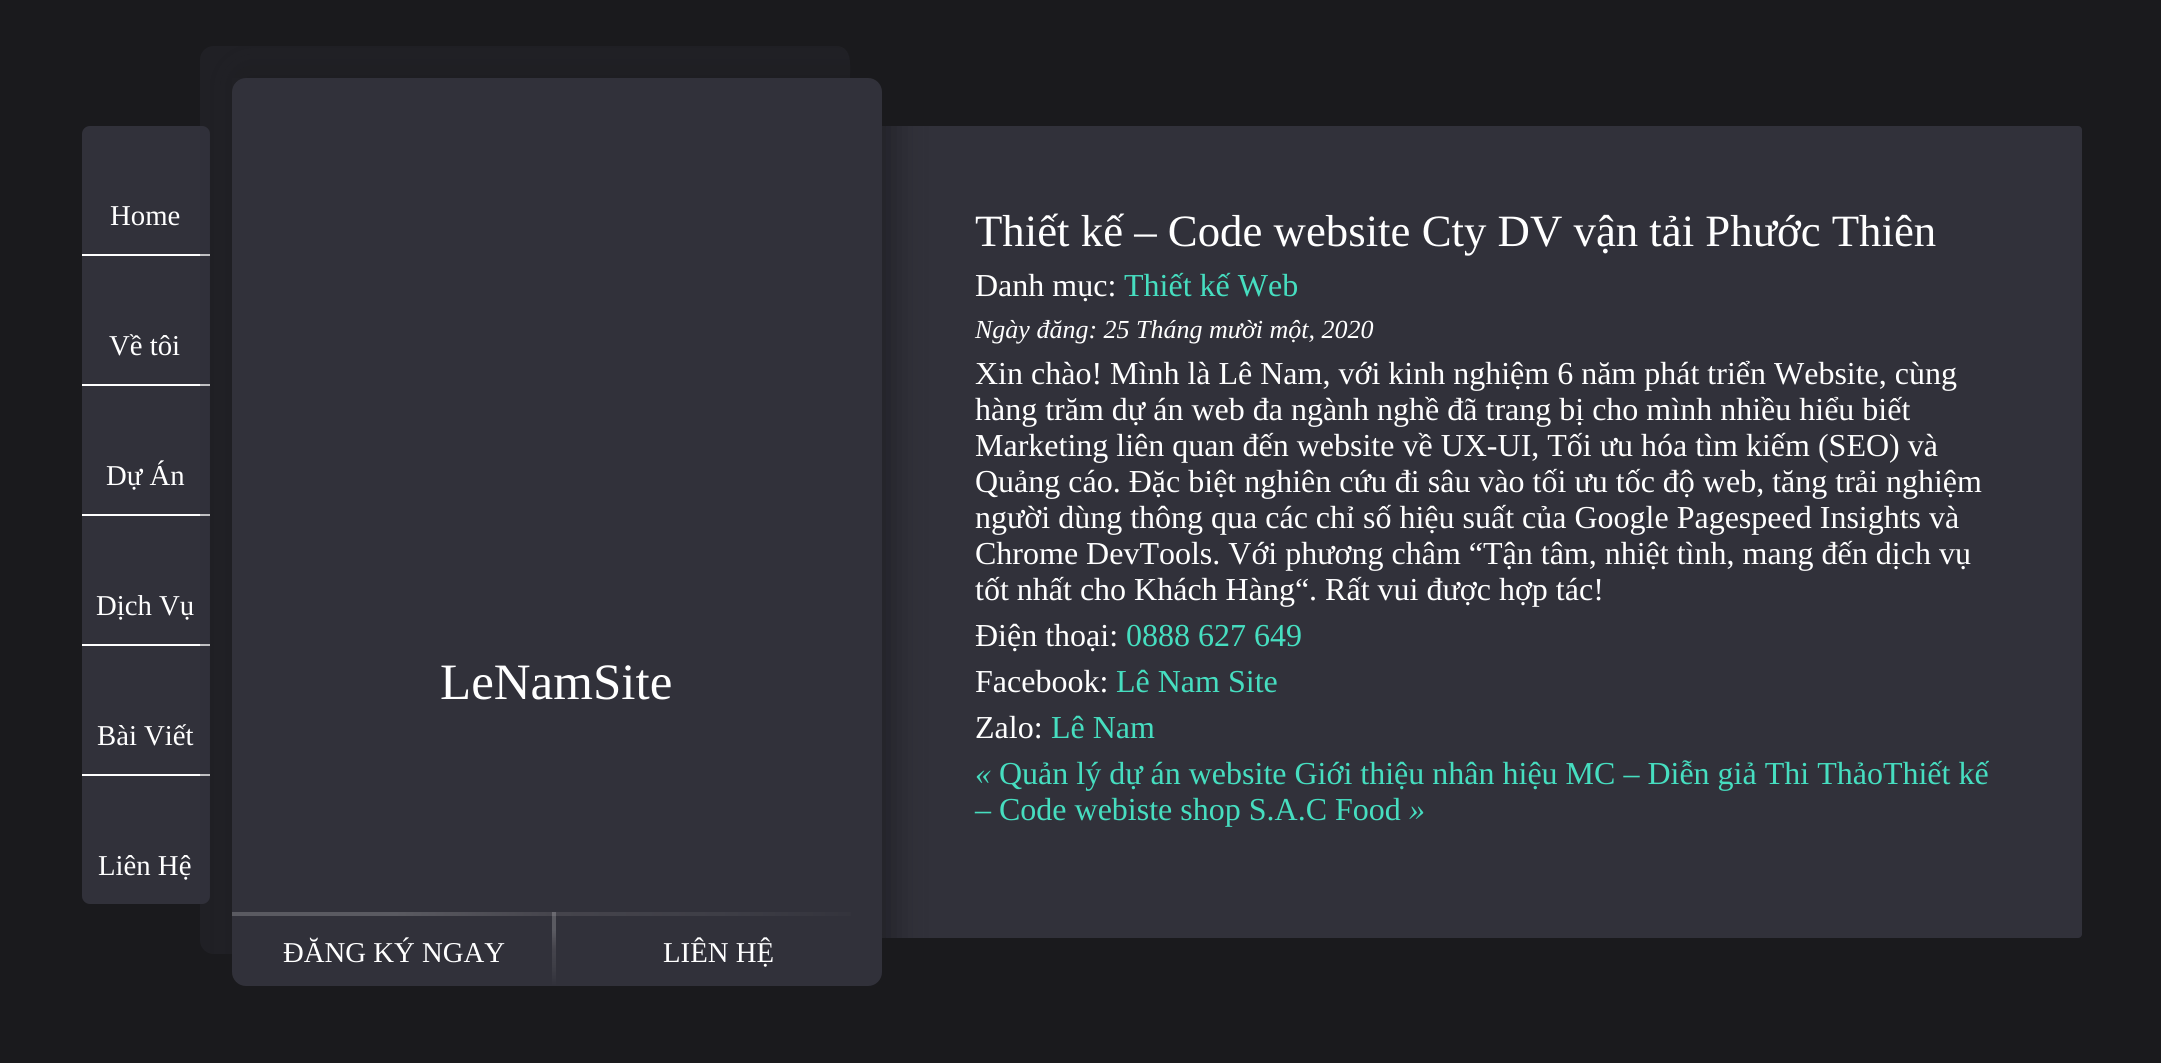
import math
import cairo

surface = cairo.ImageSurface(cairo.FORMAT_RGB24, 2161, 1063)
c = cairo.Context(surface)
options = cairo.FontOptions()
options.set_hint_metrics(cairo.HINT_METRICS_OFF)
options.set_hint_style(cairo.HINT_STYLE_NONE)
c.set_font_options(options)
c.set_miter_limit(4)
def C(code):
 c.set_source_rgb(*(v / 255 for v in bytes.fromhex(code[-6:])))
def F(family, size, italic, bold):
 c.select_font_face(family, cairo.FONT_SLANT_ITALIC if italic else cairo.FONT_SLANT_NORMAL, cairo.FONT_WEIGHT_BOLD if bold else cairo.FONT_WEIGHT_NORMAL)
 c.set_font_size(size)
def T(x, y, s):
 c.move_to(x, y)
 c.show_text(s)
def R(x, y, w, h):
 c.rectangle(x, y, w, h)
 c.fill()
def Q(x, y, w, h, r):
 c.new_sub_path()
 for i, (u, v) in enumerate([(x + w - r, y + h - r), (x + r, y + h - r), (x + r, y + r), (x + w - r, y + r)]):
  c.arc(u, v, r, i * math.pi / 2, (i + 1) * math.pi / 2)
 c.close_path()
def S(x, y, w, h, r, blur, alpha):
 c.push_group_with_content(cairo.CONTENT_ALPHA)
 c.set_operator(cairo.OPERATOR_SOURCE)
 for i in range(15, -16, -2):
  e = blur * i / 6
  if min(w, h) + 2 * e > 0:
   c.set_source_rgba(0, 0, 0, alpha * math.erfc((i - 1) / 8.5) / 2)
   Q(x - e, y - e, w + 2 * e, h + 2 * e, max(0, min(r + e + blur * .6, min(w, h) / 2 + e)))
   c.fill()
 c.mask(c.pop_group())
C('1a1a1d')
c.paint()
C('31313a')
Q(82,126,128,778,8)
c.fill()
C('ffffff')
R(82,254,128,2)
F('Liberation Serif',28.75,0,0)
T(110,225,'Home')
R(82,384,128,2)
T(109,355,'Về tôi')
R(82,514,128,2)
T(106,485,'Dự Án')
R(82,644,128,2)
T(96,615,'Dịch Vụ')
R(82,774,128,2)
T(97,745,'Bài Viết')
T(98,875,'Liên Hệ')
c.set_source_rgba(0.192,0.192,0.227,0.3)
c.new_path()
c.move_to(214,46)
c.curve_to(206,46,200,52,200,60)
c.line_to(200,940)
c.curve_to(200,948,206,954,214,954)
c.line_to(232,954)
c.line_to(232,92)
c.curve_to(232,84,238,78,246,78)
c.line_to(850,78)
c.curve_to(850,67,853,46,836,46)
c.close_path()
c.fill()
C('31313a')
Q(232,78,650,908,14)
c.fill()
Q(882,126,1200,812,4)
c.fill()
R(882,126,3,3)
R(882,935,3,3)
c.save()
c.set_fill_rule(cairo.FILL_RULE_EVEN_ODD)
c.new_path()
c.move_to(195,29)
c.line_to(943,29)
c.line_to(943,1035)
c.line_to(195,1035)
c.close_path()
c.move_to(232,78)
c.line_to(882,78)
c.line_to(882,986)
c.line_to(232,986)
c.close_path()
c.clip()
C('1a1a1d')
S(244,78,650,908,0,16,.7)
c.restore()
F('Liberation Serif',51,0,0)
C('ffffff')
T(440,699,'LeNamSite')
gradient = cairo.LinearGradient(232,914,882,914)
gradient.add_color_stop_rgba(0,0.353,0.353,0.38,1)
gradient.add_color_stop_rgba(.25,0.353,0.353,0.38,1)
gradient.add_color_stop_rgba(.5,0.271,0.267,0.298,1)
gradient.add_color_stop_rgba(.75,0.243,0.243,0.275,1)
gradient.add_color_stop_rgba(1,0.192,0.192,0.227,1)
c.set_source(gradient)
R(232,912,619,4)
F('Liberation Serif',28.75,0,0)
C('ffffff')
T(283,962,'ĐĂNG KÝ NGAY')
gradient = cairo.LinearGradient(554,912,554,986)
gradient.add_color_stop_rgba(0,1,1,1,.2)
gradient.add_color_stop_rgba(.25,1,1,1,.2)
gradient.add_color_stop_rgba(.5,0.953,0.914,0.914,.1)
gradient.add_color_stop_rgba(.75,1,1,1,.06)
gradient.add_color_stop_rgba(1,1,1,1,0)
c.set_source(gradient)
R(552,912,4,74)
C('ffffff')
T(663,962,'LIÊN HỆ')
F('Liberation Serif',44.8,0,0)
T(975,246,'Thiết kế – Code website Cty DV vận tải Phước Thiên')
F('Liberation Serif',32,0,0)
T(975,296,'Danh mục:')
C('46dec0')
T(1124,296,'Thiết kế Web')
F('Liberation Serif',26,1,0)
C('ffffff')
T(975,338,'Ngày đăng: 25 Tháng mười một, 2020')
F('Liberation Serif',32,0,0)
T(975,384,'Xin chào! Mình là Lê Nam, với kinh nghiệm 6 năm phát triển Website, cùng')
T(975,420,'hàng trăm dự án web đa ngành nghề đã trang bị cho mình nhiều hiểu biết')
T(975,456,'Marketing liên quan đến website về UX-UI, Tối ưu hóa tìm kiếm (SEO) và')
T(975,492,'Quảng cáo. Đặc biệt nghiên cứu đi sâu vào tối ưu tốc độ web, tăng trải nghiệm')
T(975,528,'người dùng thông qua các chỉ số hiệu suất của Google Pagespeed Insights và')
T(975,564,'Chrome DevTools. Với phương châm “Tận tâm, nhiệt tình, mang đến dịch vụ')
T(975,600,'tốt nhất cho Khách Hàng“. Rất vui được hợp tác!')
T(975,646,'Điện thoại:')
C('46dec0')
T(1126,646,'0888 627 649')
C('ffffff')
T(975,692,'Facebook:')
C('46dec0')
T(1116,692,'Lê Nam Site')
C('ffffff')
T(975,738,'Zalo:')
C('46dec0')
T(1051,738,'Lê Nam')
F('Liberation Serif',32,1,0)
T(975,784,'«')
F('Liberation Serif',32,0,0)
T(999,784,'Quản lý dự án website Giới thiệu nhân hiệu MC – Diễn giả Thi ThảoThiết kế')
T(975,820,'– Code webiste shop S.A.C Food')
F('Liberation Serif',32,1,0)
T(1409,820,'»')
surface.write_to_png('o.png')
